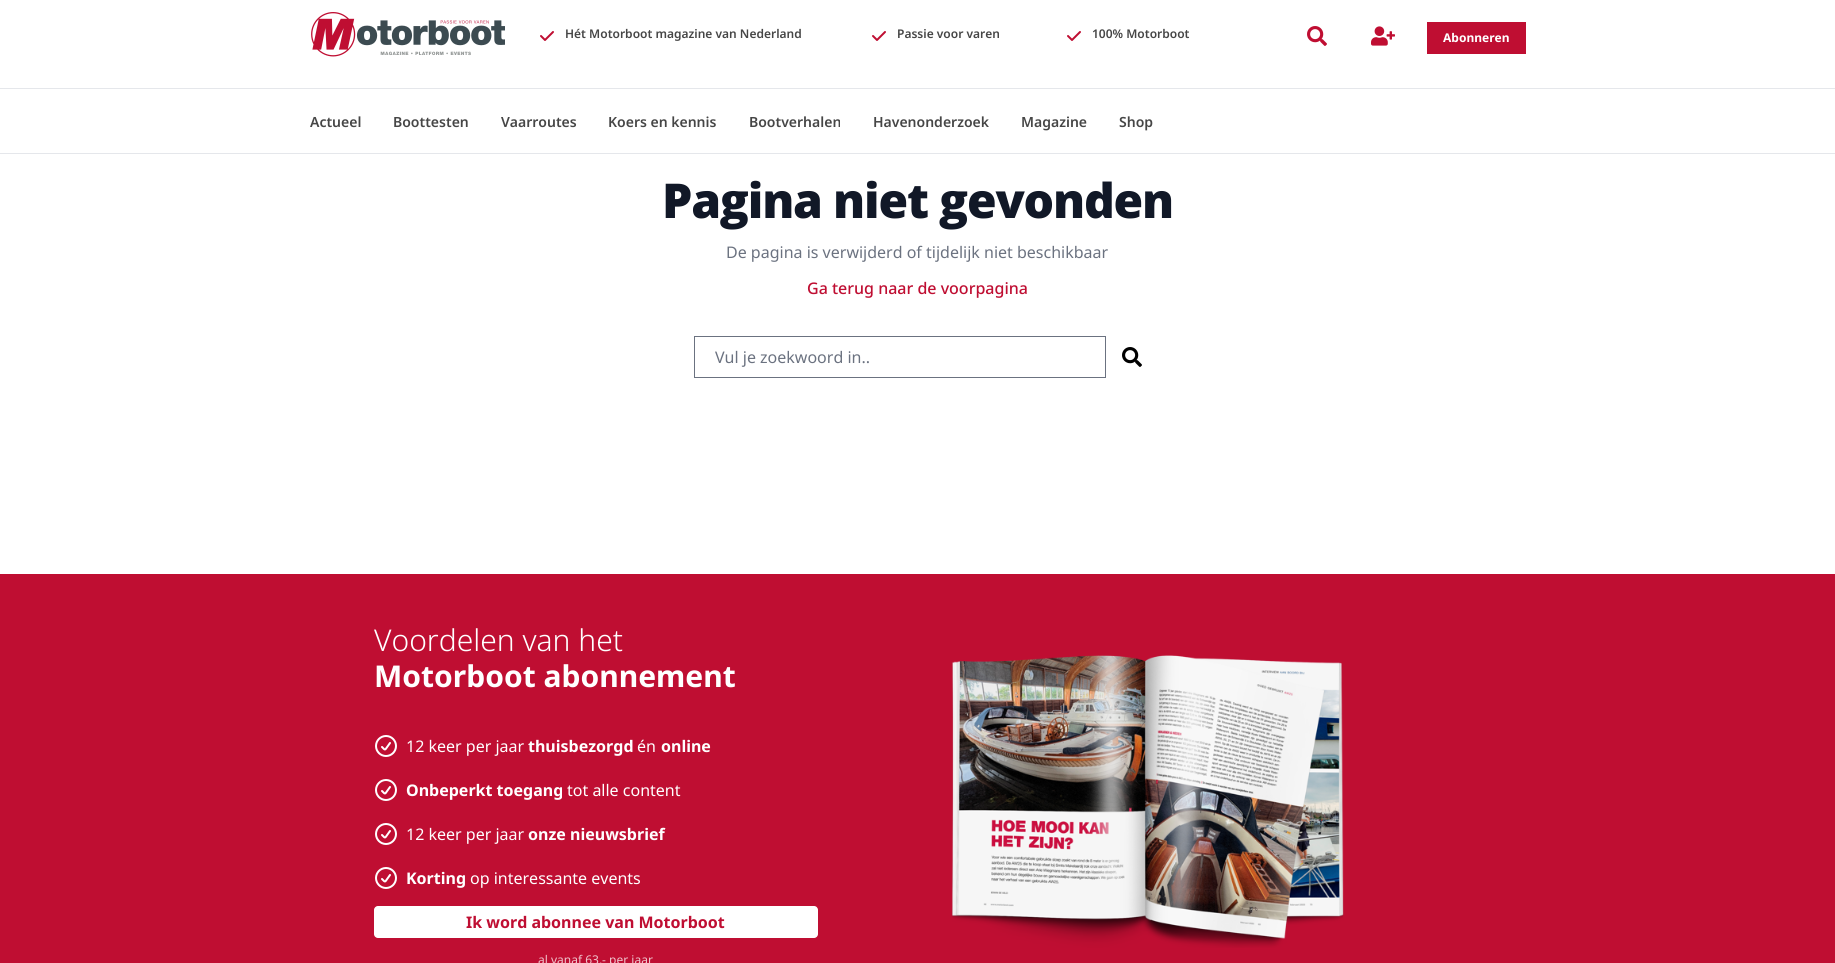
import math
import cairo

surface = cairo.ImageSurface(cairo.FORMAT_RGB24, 1835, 963)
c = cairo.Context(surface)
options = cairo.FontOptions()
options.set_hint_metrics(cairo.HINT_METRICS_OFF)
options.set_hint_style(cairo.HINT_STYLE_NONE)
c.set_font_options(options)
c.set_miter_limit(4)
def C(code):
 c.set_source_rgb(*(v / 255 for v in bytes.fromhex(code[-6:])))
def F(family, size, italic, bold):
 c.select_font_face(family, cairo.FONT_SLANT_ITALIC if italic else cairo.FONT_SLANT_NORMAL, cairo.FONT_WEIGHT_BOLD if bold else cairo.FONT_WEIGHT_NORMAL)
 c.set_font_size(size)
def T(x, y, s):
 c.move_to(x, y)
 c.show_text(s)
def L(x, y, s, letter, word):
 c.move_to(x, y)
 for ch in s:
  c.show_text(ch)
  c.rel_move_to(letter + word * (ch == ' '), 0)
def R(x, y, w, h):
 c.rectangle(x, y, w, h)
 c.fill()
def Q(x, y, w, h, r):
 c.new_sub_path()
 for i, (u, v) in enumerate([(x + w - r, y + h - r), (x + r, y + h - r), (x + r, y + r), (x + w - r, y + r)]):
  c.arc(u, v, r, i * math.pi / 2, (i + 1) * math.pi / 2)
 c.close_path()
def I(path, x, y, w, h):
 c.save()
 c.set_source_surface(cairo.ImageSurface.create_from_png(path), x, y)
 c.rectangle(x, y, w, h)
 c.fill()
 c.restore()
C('ffffff')
c.paint()
I('1.png',311,12,194,45)
I('2.png',540,31,14,10)
F('Noto Sans SemiBold',12,0,0)
C('464646')
T(565,38,'Hét Motorboot magazine van Nederland')
I('2.png',872,31,14,10)
T(897,38,'Passie voor varen')
I('2.png',1067,31,14,10)
T(1092,38,'100% Motorboot')
I('3.png',1307,26,20,20)
I('4.png',1371,26,24,20)
C('bf0e32')
R(1427,22,99,32)
F('Noto Sans',12,0,1)
C('ffffff')
T(1443,42,'Abonneren')
C('e5e7eb')
R(0,88,1835,1)
R(0,153,1835,1)
F('Noto Sans SemiBold',14,0,0)
C('464646')
T(310,127,'Actueel')
T(393,127,'Boottesten')
T(501,127,'Vaarroutes')
T(608,127,'Koers en kennis')
T(749,127,'Bootverhalen')
T(873,127,'Havenonderzoek')
T(1021,127,'Magazine')
T(1119,127,'Shop')
F('Open Sans ExtraBold',48,0,0)
C('111827')
L(662,218,'Pagina niet gevonden',-1.2,0)
F('Noto Sans',16,0,0)
C('6b7280')
T(726,258,'De pagina is verwijderd of tijdelijk niet beschikbaar')
F('Noto Sans Medium',16,0,0)
C('bf0e32')
T(807,294,'Ga terug naar de voorpagina')
c.rectangle(694.5,336.5,411,41)
C('6b7280')
c.set_line_width(1)
c.stroke()
F('Noto Sans',16,0,0)
T(715,363,'Vul je zoekwoord in..')
I('5.png',1122,347,20,20)
C('bf0e32')
R(0,574,1835,389)
F('Noto Sans Light',30,0,0)
C('ffffff')
T(374,651,'Voordelen van het')
F('Noto Sans',30,0,1)
T(374,687,'Motorboot abonnement')
I('6.png',375,735,22,22)
F('Noto Sans',16,0,0)
T(406,752,'12 keer per jaar')
F('Noto Sans',16,0,1)
T(528,752,'thuisbezorgd')
F('Noto Sans',16,0,0)
T(637,752,'én')
F('Noto Sans',16,0,1)
T(661,752,'online')
I('6.png',375,779,22,22)
T(406,796,'Onbeperkt toegang')
F('Noto Sans',16,0,0)
T(567,796,'tot alle content')
I('6.png',375,823,22,22)
T(406,840,'12 keer per jaar')
F('Noto Sans',16,0,1)
T(528,840,'onze nieuwsbrief')
I('6.png',375,867,22,22)
T(406,884,'Korting')
F('Noto Sans',16,0,0)
T(470,884,'op interessante events')
Q(374,906,444,32,4)
c.fill()
F('Noto Sans',16,0,1)
C('bf0e32')
T(466,928,'Ik word abonnee van Motorboot')
F('Noto Sans',12,0,0)
C('efc3cc')
T(538,964,'al vanaf 63,- per jaar')
I('7.png',952,655,392,293)
surface.write_to_png('o.png')
